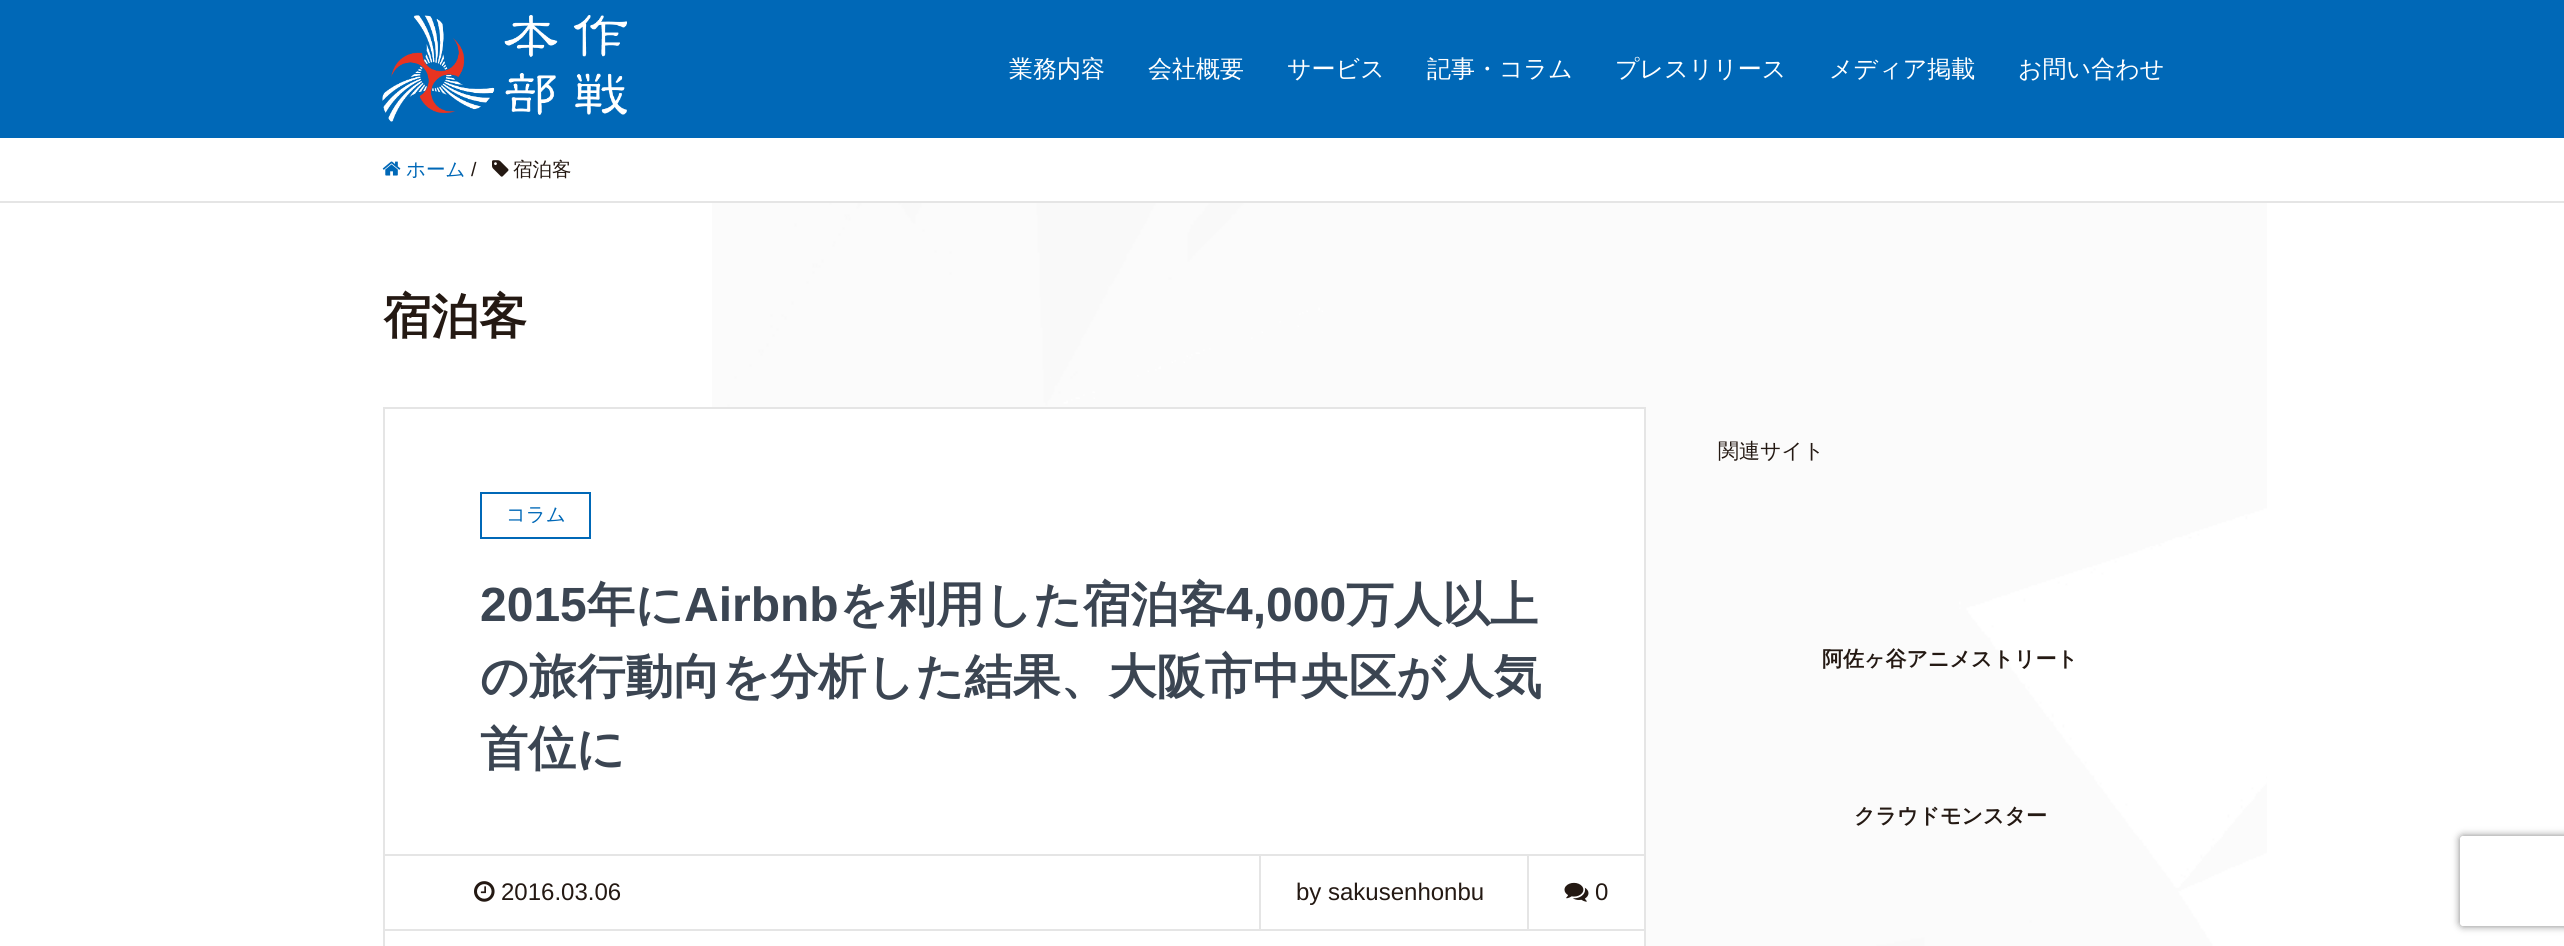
import math
import cairo

surface = cairo.ImageSurface(cairo.FORMAT_RGB24, 2564, 946)
c = cairo.Context(surface)
options = cairo.FontOptions()
options.set_hint_metrics(cairo.HINT_METRICS_OFF)
options.set_hint_style(cairo.HINT_STYLE_NONE)
c.set_font_options(options)
c.set_miter_limit(4)
def C(code):
 c.set_source_rgb(*(v / 255 for v in bytes.fromhex(code[-6:])))
def F(family, size, italic, bold):
 c.select_font_face(family, cairo.FONT_SLANT_ITALIC if italic else cairo.FONT_SLANT_NORMAL, cairo.FONT_WEIGHT_BOLD if bold else cairo.FONT_WEIGHT_NORMAL)
 c.set_font_size(size)
def T(x, y, s):
 c.move_to(x, y)
 c.show_text(s)
def R(x, y, w, h):
 c.rectangle(x, y, w, h)
 c.fill()
def Q(x, y, w, h, r):
 c.new_sub_path()
 for i, (u, v) in enumerate([(x + w - r, y + h - r), (x + r, y + h - r), (x + r, y + r), (x + w - r, y + r)]):
  c.arc(u, v, r, i * math.pi / 2, (i + 1) * math.pi / 2)
 c.close_path()
def S(x, y, w, h, r, blur, alpha):
 c.push_group_with_content(cairo.CONTENT_ALPHA)
 c.set_operator(cairo.OPERATOR_SOURCE)
 for i in range(15, -16, -2):
  e = blur * i / 6
  if min(w, h) + 2 * e > 0:
   c.set_source_rgba(0, 0, 0, alpha * math.erfc((i - 1) / 8.5) / 2)
   Q(x - e, y - e, w + 2 * e, h + 2 * e, max(0, min(r + e + blur * .6, min(w, h) / 2 + e)))
   c.fill()
 c.mask(c.pop_group())
def I(path, x, y, w, h):
 c.save()
 c.set_source_surface(cairo.ImageSurface.create_from_png(path), x, y)
 c.rectangle(x, y, w, h)
 c.fill()
 c.restore()
C('ffffff')
c.paint()
I('1.png',712,203,1555,743)
C('0068b7')
R(0,0,2564,138)
I('2.png',382,15,245,107)
F('WenQuanYi Zen Hei Medium',24,0,0)
C('ffffff')
T(1009,77,'業務内容')
T(1148,77,'会社概要')
T(1287,77,'サービス')
T(1427,77,'記事・コラム')
T(1615,77,'プレスリリース')
T(1829,77,'メディア掲載')
T(2018,77,'お問い合わせ')
C('e5e5e5')
R(0,201,2564,2)
I('3.png',382,161,19,15)
F('WenQuanYi Zen Hei Medium',19.5,0,0)
C('0068b7')
T(406,176,'ホーム')
F('Liberation Sans',19.5,0,0)
C('241913')
T(471,176,'/')
I('4.png',492,160,17,17)
F('WenQuanYi Zen Hei Medium',19.5,0,0)
T(513,176,'宿泊客')
F('WenQuanYi Zen Hei',48,0,1)
T(383,333,'宿泊客')
C('ffffff')
R(712,409,932,537)
c.rectangle(384,408,1261,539)
C('e5e5e5')
c.stroke()
R(1259,855,2,74)
R(1527,855,2,74)
R(384,854,1260,2)
c.rectangle(481,493,109,45)
C('0068b7')
c.stroke()
F('WenQuanYi Zen Hei Medium',19.5,0,0)
T(506,521,'コラム')
F('Liberation Sans',48,0,1)
C('3b4552')
T(480,621,'2015')
F('WenQuanYi Zen Hei',48,0,1)
T(587,621,'年に')
F('Liberation Sans',48,0,1)
T(684,621,'Airbnb')
F('WenQuanYi Zen Hei',48,0,1)
T(839,621,'を利用した宿泊客')
F('Liberation Sans',48,0,1)
T(1226,621,'4,000')
F('WenQuanYi Zen Hei',48,0,1)
T(1346,621,'万人以上')
T(480,693,'の旅行動向を分析した結果、大阪市中央区が人気')
T(480,765,'首位に')
C('e5e5e5')
R(384,929,1260,2)
I('5.png',474,881,21,21)
F('Liberation Sans',24,0,0)
C('241913')
T(501,900,'2016.03.06')
T(1296,900,'by sakusenhonbu')
I('6.png',1564,882,25,20)
T(1595,900,'0')
F('WenQuanYi Zen Hei Medium',21,0,0)
T(1718,458,'関連サイト')
F('WenQuanYi Zen Hei',21,0,1)
T(1822,666,'阿佐ヶ谷アニメストリート')
T(1854,823,'クラウドモンスター')
c.save()
c.set_fill_rule(cairo.FILL_RULE_EVEN_ODD)
c.new_path()
c.move_to(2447,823)
c.line_to(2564,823)
c.line_to(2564,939)
c.line_to(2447,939)
c.close_path()
c.move_to(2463,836)
c.line_to(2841,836)
c.curve_to(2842.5,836,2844,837.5,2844,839)
c.line_to(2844,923)
c.curve_to(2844,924.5,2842.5,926,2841,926)
c.line_to(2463,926)
c.curve_to(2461.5,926,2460,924.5,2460,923)
c.line_to(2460,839)
c.curve_to(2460,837.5,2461.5,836,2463,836)
c.close_path()
c.clip()
C('808080')
S(2460,836,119,90,3,4,1)
c.restore()
surface.write_to_png('o.png')
